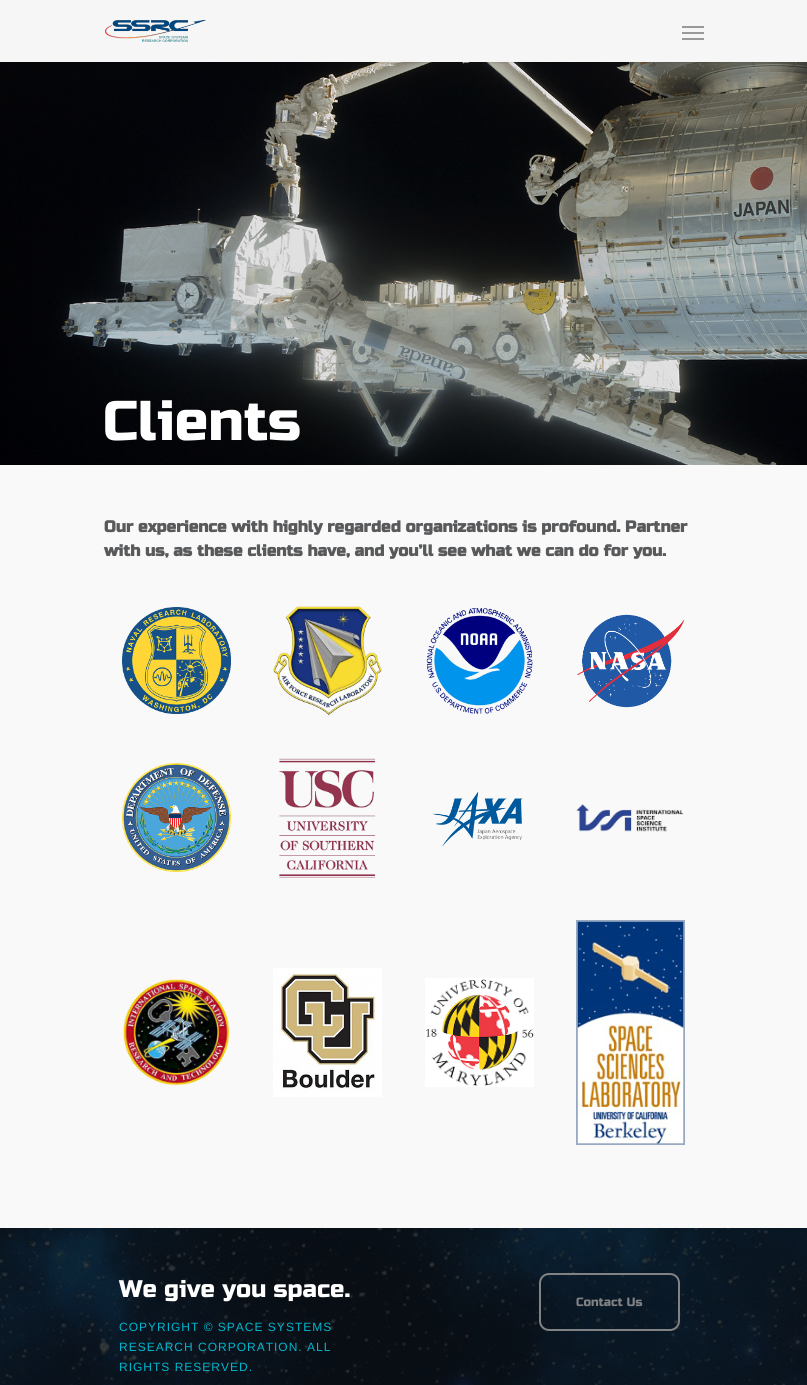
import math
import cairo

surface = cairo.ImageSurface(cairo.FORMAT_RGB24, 807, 1385)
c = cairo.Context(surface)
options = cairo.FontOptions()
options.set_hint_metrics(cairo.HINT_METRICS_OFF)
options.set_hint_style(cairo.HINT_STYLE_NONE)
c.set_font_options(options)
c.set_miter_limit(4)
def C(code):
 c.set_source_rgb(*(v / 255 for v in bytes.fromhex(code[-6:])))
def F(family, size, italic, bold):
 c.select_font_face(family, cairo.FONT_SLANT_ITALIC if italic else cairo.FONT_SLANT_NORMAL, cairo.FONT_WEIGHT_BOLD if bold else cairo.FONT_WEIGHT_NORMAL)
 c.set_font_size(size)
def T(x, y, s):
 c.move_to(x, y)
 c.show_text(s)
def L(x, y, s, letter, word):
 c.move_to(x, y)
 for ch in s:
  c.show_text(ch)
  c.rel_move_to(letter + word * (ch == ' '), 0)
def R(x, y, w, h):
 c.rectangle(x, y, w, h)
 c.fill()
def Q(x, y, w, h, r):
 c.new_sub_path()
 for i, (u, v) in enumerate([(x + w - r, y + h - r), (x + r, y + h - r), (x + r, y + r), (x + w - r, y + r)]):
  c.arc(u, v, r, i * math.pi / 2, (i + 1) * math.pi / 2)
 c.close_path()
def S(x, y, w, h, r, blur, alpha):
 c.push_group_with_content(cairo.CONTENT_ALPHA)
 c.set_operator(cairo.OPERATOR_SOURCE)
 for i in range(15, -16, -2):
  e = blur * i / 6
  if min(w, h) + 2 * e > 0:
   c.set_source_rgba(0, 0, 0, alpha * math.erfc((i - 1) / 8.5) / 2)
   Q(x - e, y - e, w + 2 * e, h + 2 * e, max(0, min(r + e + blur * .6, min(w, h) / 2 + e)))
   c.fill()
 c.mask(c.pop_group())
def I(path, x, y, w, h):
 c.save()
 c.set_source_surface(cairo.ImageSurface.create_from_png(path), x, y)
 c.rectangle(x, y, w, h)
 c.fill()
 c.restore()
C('ffffff')
c.paint()
I('2.png',0,62,807,403)
C('000000')
S(0,0,807,62,0,1.5,.22)
C('f6f6f6')
R(0,0,807,62)
I('1.png',105,19,101,23)
C('999999')
R(682,26,22,2)
R(682,38,22,2)
R(682,32,22,2)
C('f9f9f9')
R(0,465,807,763)
F('Russo One',56,0,0)
C('ffffff')
T(103,440,'Clients')
F('Russo One',16,0,1)
C('58595b')
T(104,532,'Our experience with highly regarded organizations is profound. Partner')
T(104,556,'with us, as these clients have, and you’ll see what we can do for you.')
I('3.png',122,607,109,107)
I('4.png',273,606,109,110)
I('5.png',426,608,107,106)
I('6.png',577,614,108,94)
I('7.png',122,763,109,109)
I('8.png',279,758,97,120)
I('9.png',432,791,91,55)
I('10.png',576,804,108,28)
I('11.png',123,979,107,107)
I('12.png',273,968,109,129)
I('13.png',425,978,109,109)
I('14.png',576,920,109,225)
I('15.png',0,1228,807,157)
F('Russo One',24,0,0)
C('ffffff')
T(119,1297,'We give you space.')
F('Liberation Sans',12,0,0)
C('00b5cc')
L(119,1331,'COPYRIGHT © SPACE SYSTEMS',1,0)
L(119,1351,'RESEARCH CORPORATION. ALL',1,0)
L(119,1371,'RIGHTS RESERVED.',1,0)
Q(540,1274,139,56,9)
C('818284')
c.stroke()
F('Russo One',12,0,0)
T(576,1306,'Contact Us')
surface.write_to_png('o.png')
